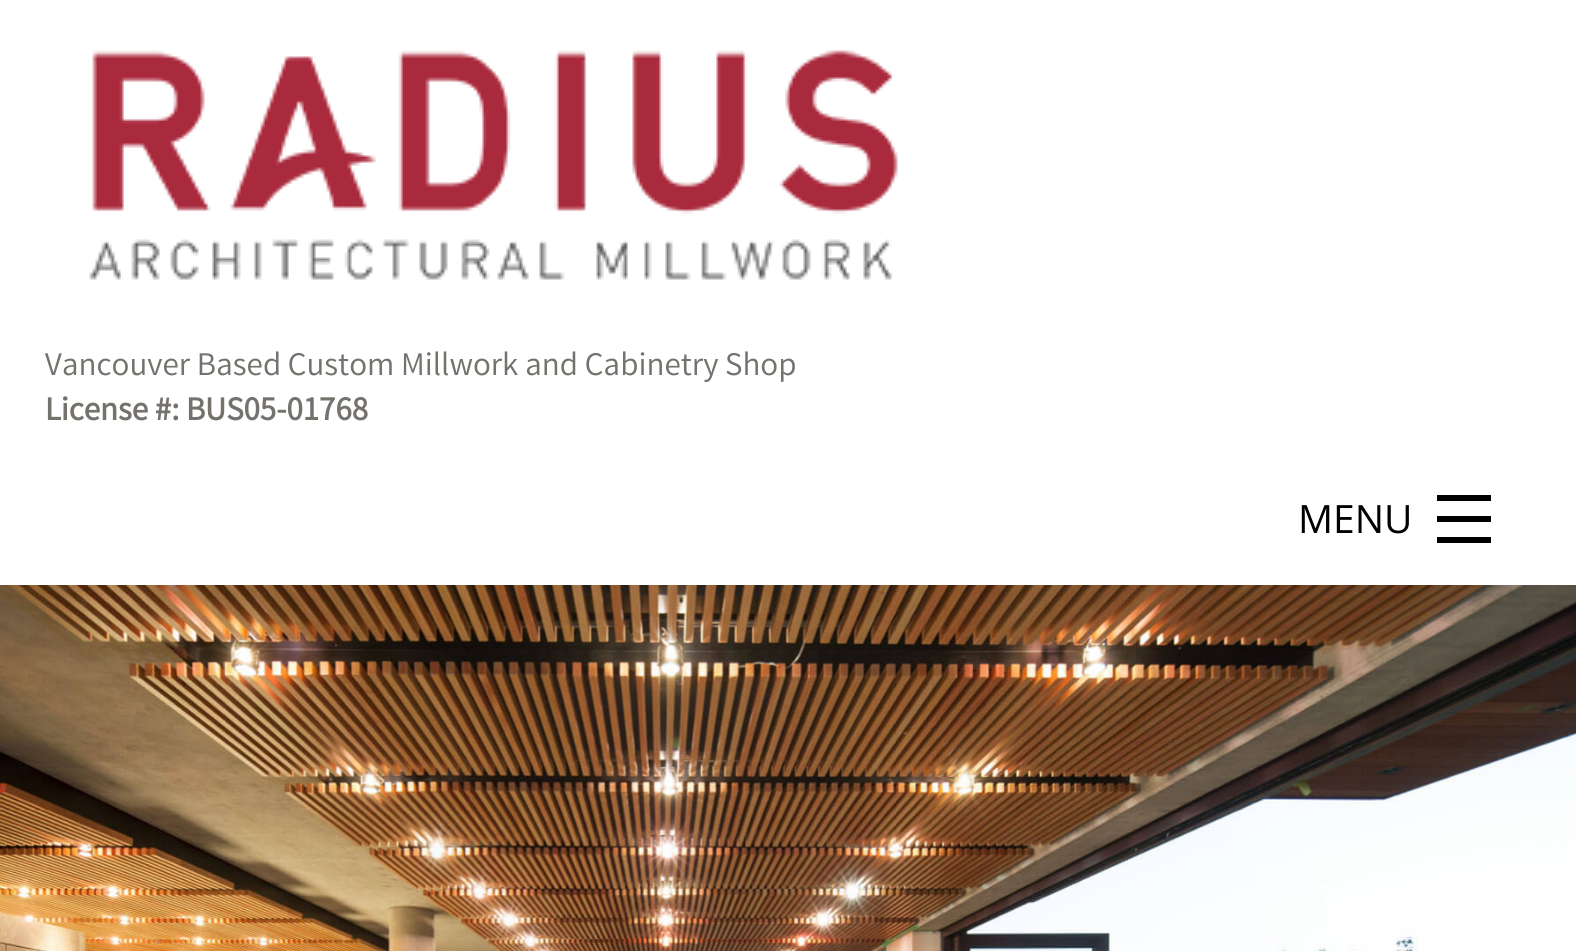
import math
import cairo

surface = cairo.ImageSurface(cairo.FORMAT_RGB24, 1576, 951)
c = cairo.Context(surface)
options = cairo.FontOptions()
options.set_hint_metrics(cairo.HINT_METRICS_OFF)
options.set_hint_style(cairo.HINT_STYLE_NONE)
c.set_font_options(options)
c.set_miter_limit(4)
def C(code):
 c.set_source_rgb(*(v / 255 for v in bytes.fromhex(code[-6:])))
def F(family, size, italic, bold):
 c.select_font_face(family, cairo.FONT_SLANT_ITALIC if italic else cairo.FONT_SLANT_NORMAL, cairo.FONT_WEIGHT_BOLD if bold else cairo.FONT_WEIGHT_NORMAL)
 c.set_font_size(size)
def T(x, y, s):
 c.move_to(x, y)
 c.show_text(s)
def R(x, y, w, h):
 c.rectangle(x, y, w, h)
 c.fill()
def I(path, x, y, w, h):
 c.save()
 c.set_source_surface(cairo.ImageSurface.create_from_png(path), x, y)
 c.rectangle(x, y, w, h)
 c.fill()
 c.restore()
C('ffffff')
c.paint()
I('1.png',89,50,809,230)
F('Varta Light',33,0,0)
C('75726e')
T(45,375,'Vancouver Based Custom Millwork and Cabinetry Shop')
F('Varta',33,0,1)
T(45,420,'License #: BUS05-01768')
F('Open Sans',39,0,0)
C('000000')
T(1298,533,'MENU')
R(1437,537,54,6)
R(1437,516,54,6)
R(1437,495,54,6)
I('2.png',0,585,1576,366)
surface.write_to_png('o.png')
